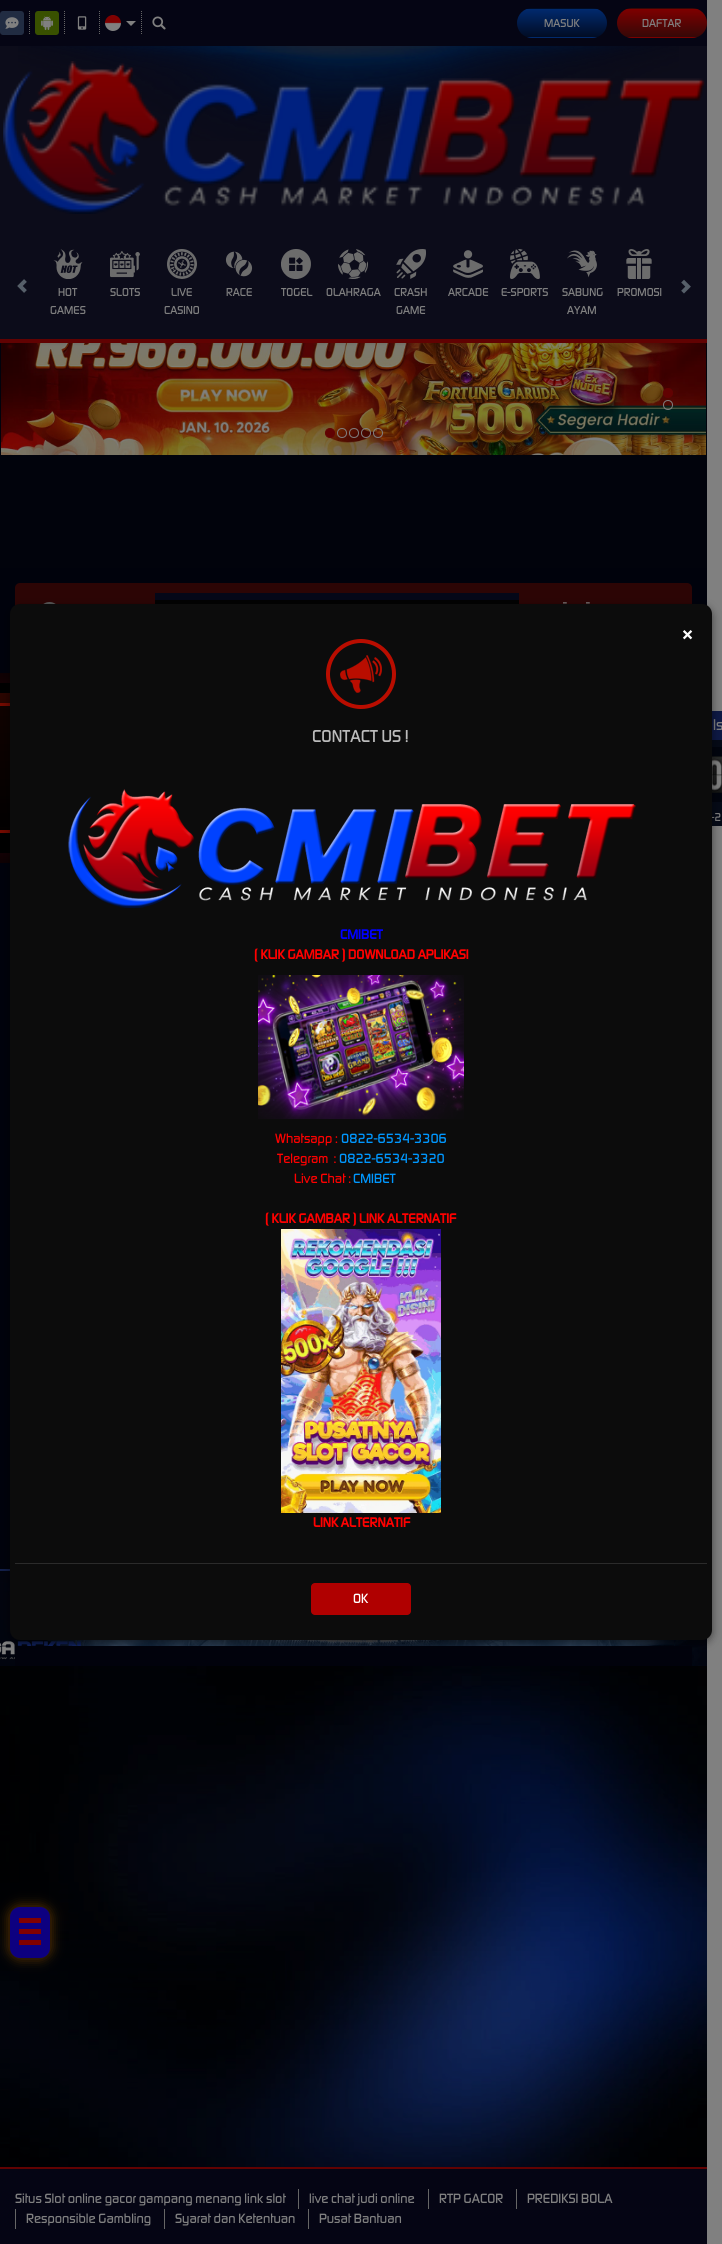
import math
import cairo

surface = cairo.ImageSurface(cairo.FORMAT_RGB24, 722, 2244)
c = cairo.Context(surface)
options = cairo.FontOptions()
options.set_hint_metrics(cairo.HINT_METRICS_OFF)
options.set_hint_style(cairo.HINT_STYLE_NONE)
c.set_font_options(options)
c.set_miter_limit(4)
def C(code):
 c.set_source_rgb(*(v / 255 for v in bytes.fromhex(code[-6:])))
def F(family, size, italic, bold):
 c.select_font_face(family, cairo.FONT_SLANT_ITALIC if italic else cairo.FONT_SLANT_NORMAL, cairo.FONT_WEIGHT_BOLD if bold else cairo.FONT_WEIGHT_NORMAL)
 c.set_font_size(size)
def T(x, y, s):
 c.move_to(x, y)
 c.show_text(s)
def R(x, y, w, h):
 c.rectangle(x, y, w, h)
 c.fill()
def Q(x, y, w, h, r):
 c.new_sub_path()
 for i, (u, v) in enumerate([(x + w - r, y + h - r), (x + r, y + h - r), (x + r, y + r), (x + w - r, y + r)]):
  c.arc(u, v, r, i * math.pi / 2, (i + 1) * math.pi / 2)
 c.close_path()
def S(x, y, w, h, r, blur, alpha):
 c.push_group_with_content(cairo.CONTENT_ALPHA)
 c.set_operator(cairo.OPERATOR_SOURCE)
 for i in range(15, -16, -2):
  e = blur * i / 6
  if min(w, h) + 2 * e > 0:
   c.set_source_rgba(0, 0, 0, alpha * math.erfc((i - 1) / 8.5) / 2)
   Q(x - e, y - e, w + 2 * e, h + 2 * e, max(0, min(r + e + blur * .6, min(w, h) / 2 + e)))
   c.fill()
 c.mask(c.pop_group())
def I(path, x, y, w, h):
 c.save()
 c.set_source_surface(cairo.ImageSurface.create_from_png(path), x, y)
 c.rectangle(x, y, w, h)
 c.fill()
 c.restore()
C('808080')
c.paint()
C('050514')
R(0,0,707,46)
C('212c42')
Q(0,11,24,24,3)
c.fill()
I('1.png',5,17,14,12)
c.new_path()
c.move_to(29.5,11)
c.line_to(29.5,35)
C('666666')
c.set_line_width(1)
c.set_dash([1,1])
c.stroke()
C('395100')
Q(35,11,24,24,3)
c.fill()
I('2.png',41,16,12,14)
c.new_path()
c.move_to(64.5,11)
c.line_to(64.5,35)
C('666666')
c.stroke()
I('3.png',77,16,10,14)
c.new_path()
c.move_to(99.5,11)
c.line_to(99.5,35)
c.stroke()
I('4.png',105,15,16,16)
C('808080')
c.new_path()
c.move_to(126,21)
c.line_to(136,21)
c.line_to(131,26)
c.close_path()
c.fill()
c.new_path()
c.move_to(141.5,11)
c.line_to(141.5,35)
C('666666')
c.stroke()
I('5.png',152,16,14,14)
c.save()
Q(517,8,90,30,15)
c.clip()
gradient = cairo.LinearGradient(562,-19,562,9)
gradient.add_color_stop_rgba(0,0.004,0.165,0.431,1)
gradient.add_color_stop_rgba(1,0.004,0.047,0.141,1)
c.set_source(gradient)
R(527,8,70,1)
gradient = cairo.LinearGradient(562,9,562,37)
gradient.add_color_stop_rgba(0,0.004,0.165,0.431,1)
gradient.add_color_stop_rgba(1,0.004,0.047,0.141,1)
c.set_source(gradient)
R(517,9,90,28)
gradient = cairo.LinearGradient(562,37,562,65)
gradient.add_color_stop_rgba(0,0.004,0.165,0.431,1)
gradient.add_color_stop_rgba(1,0.004,0.047,0.141,1)
c.set_source(gradient)
R(527,37,70,1)
c.restore()
F('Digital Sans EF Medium',12,0,0)
C('808080')
T(544,27,'MASUK')
c.save()
Q(617,8,90,30,15)
c.clip()
gradient = cairo.LinearGradient(662,-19,662,9)
gradient.add_color_stop_rgba(0,0.494,0,0,1)
gradient.add_color_stop_rgba(1,0.208,0.031,0.027,1)
c.set_source(gradient)
R(627,8,70,1)
gradient = cairo.LinearGradient(662,9,662,37)
gradient.add_color_stop_rgba(0,0.494,0,0,1)
gradient.add_color_stop_rgba(1,0.208,0.031,0.027,1)
c.set_source(gradient)
R(617,9,90,28)
gradient = cairo.LinearGradient(662,37,662,65)
gradient.add_color_stop_rgba(0,0.494,0,0,1)
gradient.add_color_stop_rgba(1,0.208,0.031,0.027,1)
c.set_source(gradient)
R(627,37,70,1)
c.restore()
T(642,27,'DAFTAR')
C('0c0c1a')
R(0,46,707,293)
C('610202')
R(0,339,707,4)
I('6.png',18,46,661,95)
I('7.png',3,61,702,153)
I('8.png',17,279,10,14)
I('9.png',53,249,30,30)
C('808080')
T(58,296,'HOT')
T(50,314,'GAMES')
I('10.png',110,251,30,27)
T(110,296,'SLOTS')
I('11.png',167,249,30,30)
T(171,296,'LIVE')
T(164,314,'CASINO')
I('12.png',225,251,28,26)
T(226,296,'RACE')
I('13.png',281,249,30,30)
T(281,296,'TOGEL')
I('14.png',338,249,30,30)
T(326,296,'OLAHRAGA')
I('15.png',396,249,30,30)
T(394,296,'CRASH')
T(396,314,'GAME')
I('16.png',453,250,30,28)
T(448,296,'ARCADE')
I('17.png',510,249,30,30)
T(501,296,'E-SPORTS')
I('18.png',567,250,30,28)
T(562,296,'SABUNG')
T(567,314,'AYAM')
I('19.png',626,249,26,30)
T(617,296,'PROMOSI')
I('20.png',681,279,10,15)
C('01030c')
R(0,343,707,225)
I('21.png',1,343,705,112)
C('610202')
c.arc(668,393,4.5,0,2 * math.pi)
c.fill_preserve()
c.set_dash([])
c.stroke()
c.arc(668,405,4.5,0,2 * math.pi)
C('808080')
c.stroke()
C('610202')
c.arc(330,433,4.5,0,2 * math.pi)
c.fill_preserve()
c.stroke()
c.arc(342,433,4.5,0,2 * math.pi)
C('808080')
c.stroke()
c.arc(354,433,4.5,0,2 * math.pi)
c.stroke()
c.arc(366,433,4.5,0,2 * math.pi)
c.stroke()
c.arc(378,433,4.5,0,2 * math.pi)
c.stroke()
C('00020c')
R(0,568,707,1001)
C('13204b')
R(0,1569,10,2)
C('2c0505')
Q(15,583,677,60,5)
c.fill()
I('22.png',43,602,13,2)
C('040718')
R(155,593,364,7)
C('020202')
R(155,600,364,4)
F('Digital Sans EF Medium',14,0,0)
C('808080')
T(563,607,'-')
T(586,607,'-')
gradient = cairo.LinearGradient(240,673,240,863)
gradient.add_color_stop_rgba(0,0.055,0.004,0.012,1)
gradient.add_color_stop_rgba(.5,0.208,0.016,0.035,1)
gradient.add_color_stop_rgba(1,0.055,0.004,0.012,1)
c.set_source(gradient)
R(0,673,10,190)
C('000000')
R(0,683,10,170)
gradient = cairo.LinearGradient(240,693,240,843)
gradient.add_color_stop_rgba(0,0.169,0.02,0,1)
gradient.add_color_stop_rgba(1,0,0,0,1)
c.set_source(gradient)
R(0,693,10,141)
c.set_source_rgba(0,0,0,0.6)
R(0,706,10,121)
c.rectangle(-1.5,704.5,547,127)
C('740a00')
c.set_line_width(3)
c.stroke()
C('050a17')
R(712,740,10,86)
C('0e1945')
R(712,711,10,29)
F('Digital Sans EF Medium',16,0,0)
C('808080')
T(713,730,'ls')
C('01040e')
R(712,747,10,55)
I('23.png',712,756,10,37)
F('Digital Sans EF Medium',12,0,0)
C('808080')
T(711,821,'-2')
I('28.png',0,1571,707,95)
I('29.png',0,1641,81,19)
C('01020c')
R(15,1646,677,20)
C('000000')
S(10,607,702,1036,10,4.5,.5)
C('0c0c0c')
Q(12.5,606.5,697,1031,7.5)
c.fill_preserve()
c.set_line_width(5)
c.stroke()
F('Digital Sans EF',21,0,1)
C('ffffff')
T(682,642,'×')
I('24.png',326,639,70,70)
F('Digital Sans EF Medium',18,0,0)
C('bbbbbb')
T(312,742,'CONTACT US !')
I('25.png',68,789,568,119)
F('Digital Sans EF',14,0,1)
C('0000ff')
T(340,939,'CMIBET')
C('ff0000')
T(254,959,'( KLIK GAMBAR ) DOWNLOAD APLIKASI')
I('26.png',258,975,206,144)
F('Digital Sans EF Medium',14,0,0)
T(275,1143,'Whatsapp :')
C('0097fe')
T(341,1143,'0822-6534-3306')
C('ff0000')
T(277,1163,'Telegram  :')
C('0097fe')
T(339,1163,'0822-6534-3320')
C('ff0000')
T(294,1183,'Live Chat :')
C('0097fe')
T(353,1183,'CMIBET')
F('Digital Sans EF',14,0,1)
C('ff0000')
T(265,1223,'( KLIK GAMBAR ) LINK ALTERNATIF')
I('27.png',281,1229,160,284)
T(313,1527,'LINK ALTERNATIF')
C('2b2b2b')
R(15,1563,692,1)
C('b00000')
Q(311,1583,100,32,4)
c.fill()
F('Digital Sans EF Medium',14,0,0)
C('ffffff')
T(353,1603,'OK')
I('30.png',0,1666,707,501)
C('804900')
S(9,1906,42,53,11,6,.7)
C('0d0080')
Q(10,1907,40,51,10)
c.fill()
C('800000')
R(19,1918,22,5)
R(19,1929,22,5)
R(19,1940,22,5)
C('050514')
R(0,2169,707,75)
C('610202')
R(0,2167,707,2)
C('808080')
T(15,2203,'Situs Slot online gacor gampang menang link slot')
C('666666')
R(298,2189,1,20)
C('808080')
T(309,2203,'live chat judi online')
C('666666')
R(428,2189,1,20)
C('808080')
T(439,2203,'RTP GACOR')
C('666666')
R(516,2189,1,20)
C('808080')
T(527,2203,'PREDIKSI BOLA')
C('666666')
R(15,2209,1,20)
C('808080')
T(26,2223,'Responsible Gambling')
C('666666')
R(164,2209,1,20)
C('808080')
T(175,2223,'Syarat dan Ketentuan')
C('666666')
R(308,2209,1,20)
C('808080')
T(319,2223,'Pusat Bantuan')
surface.write_to_png('o.png')
